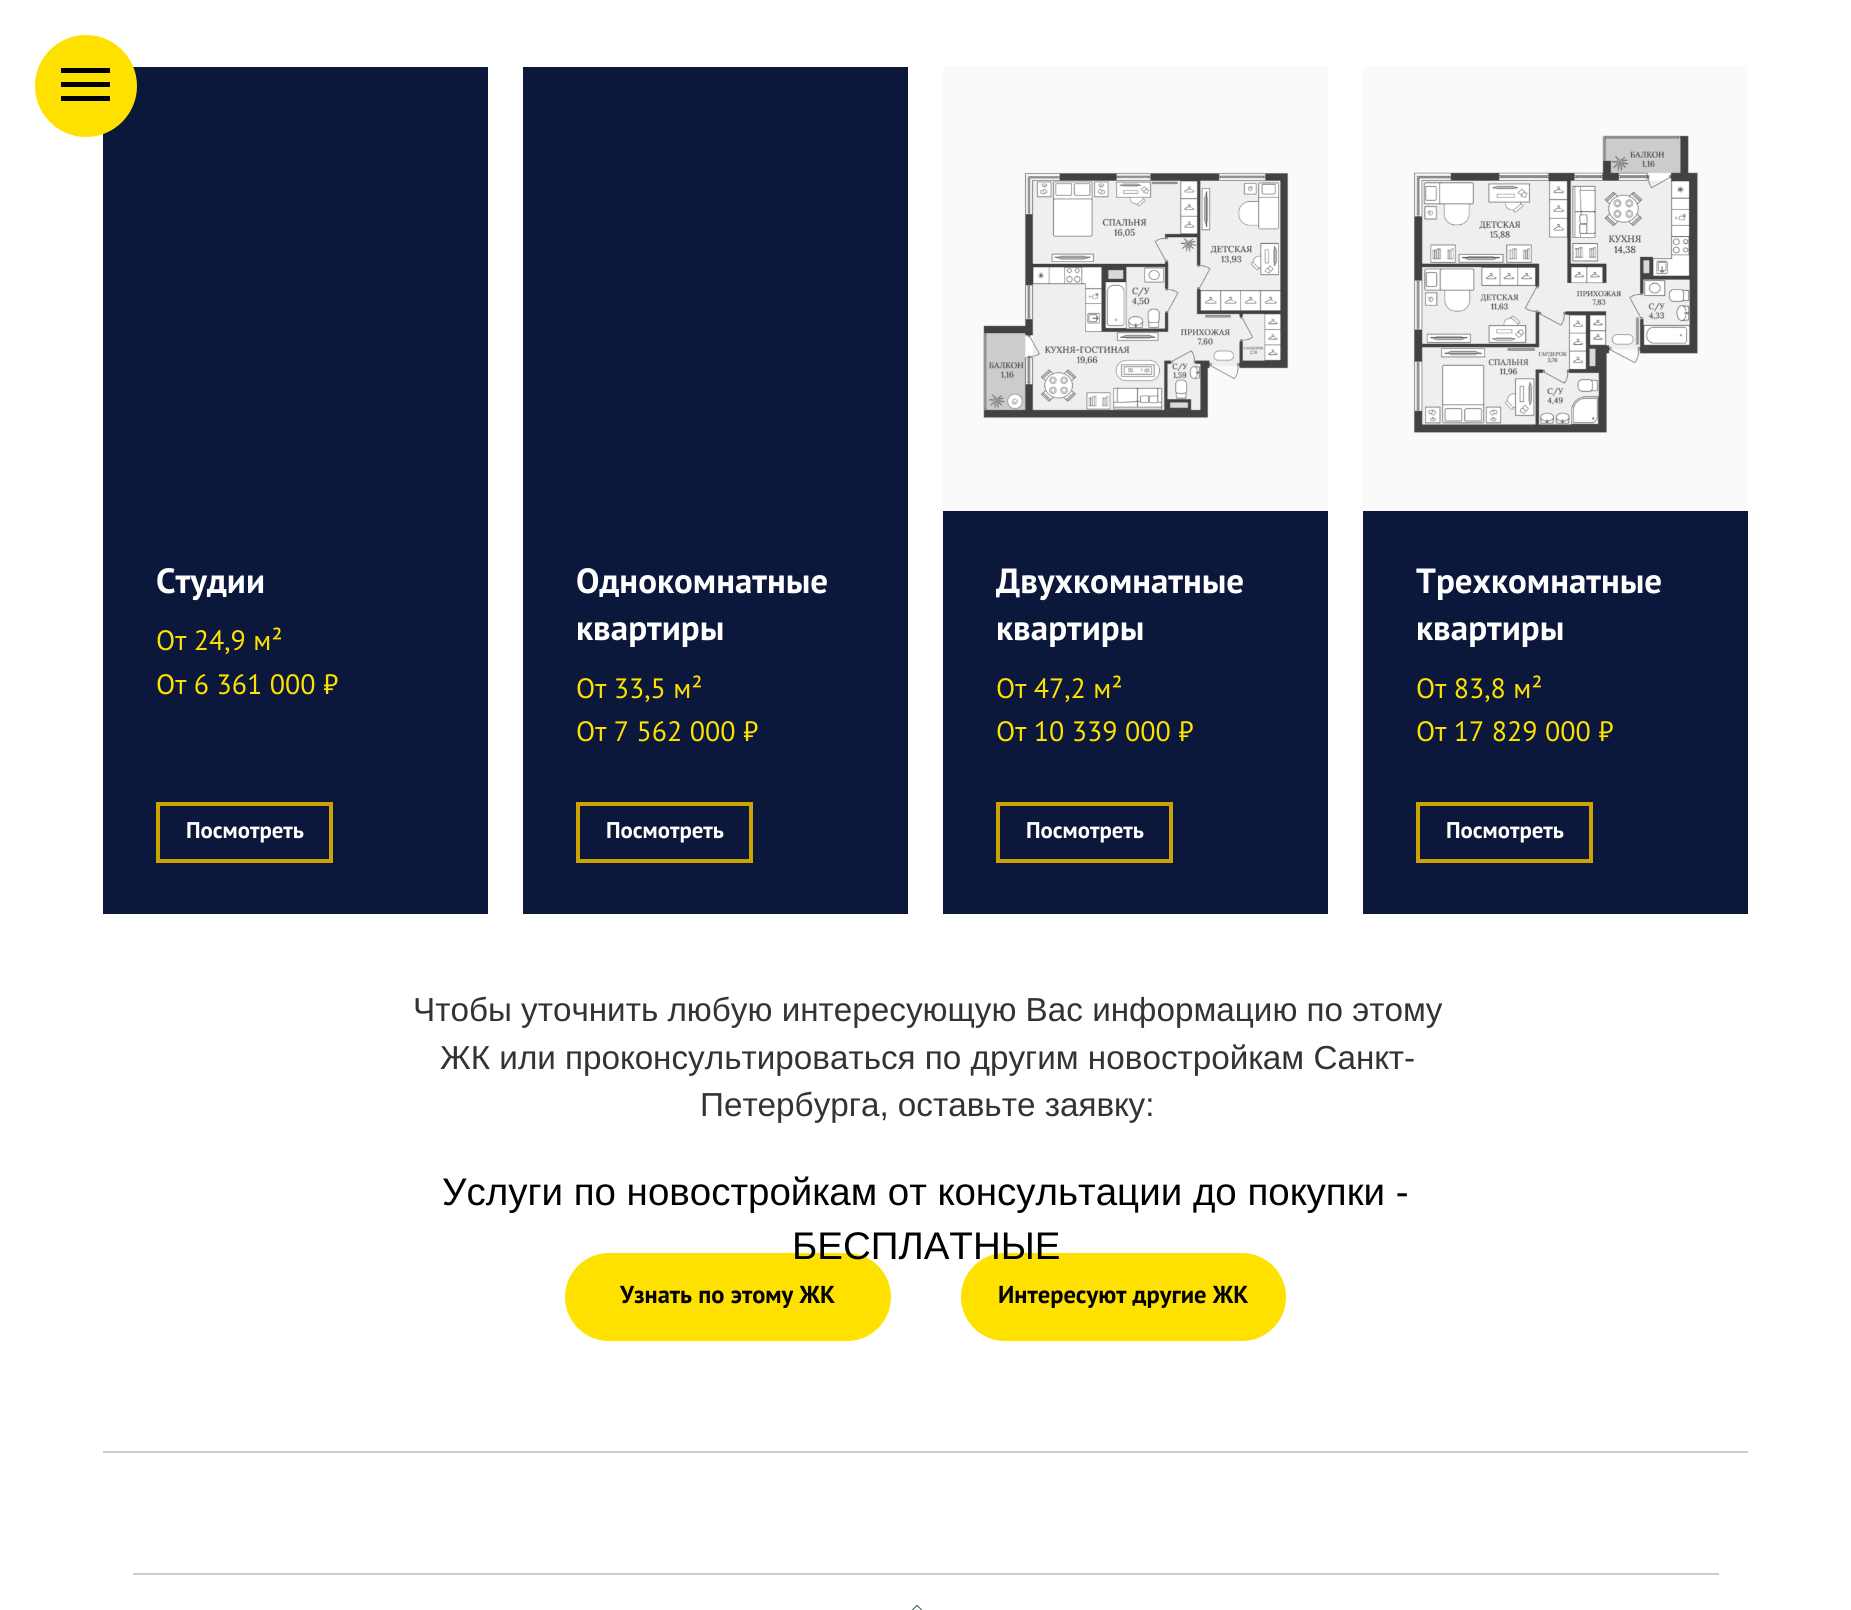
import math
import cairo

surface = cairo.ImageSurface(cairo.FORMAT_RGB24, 1851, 1610)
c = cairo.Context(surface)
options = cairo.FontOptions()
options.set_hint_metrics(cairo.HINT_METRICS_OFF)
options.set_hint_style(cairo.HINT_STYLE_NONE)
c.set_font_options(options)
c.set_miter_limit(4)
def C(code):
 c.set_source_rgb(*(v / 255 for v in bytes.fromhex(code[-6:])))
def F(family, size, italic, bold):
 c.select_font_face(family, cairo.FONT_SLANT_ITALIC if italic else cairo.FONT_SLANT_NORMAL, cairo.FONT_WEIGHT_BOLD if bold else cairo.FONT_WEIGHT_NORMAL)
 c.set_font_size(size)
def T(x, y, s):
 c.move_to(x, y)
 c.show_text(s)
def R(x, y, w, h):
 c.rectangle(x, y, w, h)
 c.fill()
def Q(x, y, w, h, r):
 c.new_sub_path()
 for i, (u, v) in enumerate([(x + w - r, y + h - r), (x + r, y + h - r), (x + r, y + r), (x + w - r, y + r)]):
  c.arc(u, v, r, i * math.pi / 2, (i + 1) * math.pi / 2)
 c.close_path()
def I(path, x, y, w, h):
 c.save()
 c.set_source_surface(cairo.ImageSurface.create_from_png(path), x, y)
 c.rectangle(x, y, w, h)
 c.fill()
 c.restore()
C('ffffff')
c.paint()
C('0c183b')
R(103,67,385,847)
C('ffe100')
c.arc(86,86,51,0,2 * math.pi)
c.fill()
C('000000')
R(61,68,49,5)
R(61,82,49,5)
R(61,96,49,5)
F('PT Sans',35,0,1)
C('ffffff')
T(156,593,'Студии')
F('PT Sans',28,0,0)
C('ffe100')
T(156,650,'От 24,9 м²')
T(156,694,'От 6 361 000 ₽')
c.rectangle(158,804,173,57)
C('cca300')
c.set_line_width(4)
c.stroke()
F('PT Sans',22.75,0,1)
C('ffffff')
T(186,838,'Посмотреть')
C('0c183b')
R(523,67,385,847)
F('PT Sans',35,0,1)
C('ffffff')
T(576,593,'Однокомнатные')
T(576,640,'квартиры')
F('PT Sans',28,0,0)
C('ffe100')
T(576,698,'От 33,5 м²')
T(576,741,'От 7 562 000 ₽')
c.rectangle(578,804,173,57)
C('cca300')
c.stroke()
F('PT Sans',22.75,0,1)
C('ffffff')
T(606,838,'Посмотреть')
C('0c183b')
R(943,511,385,403)
I('1.png',943,66,385,445)
F('PT Sans',35,0,1)
C('ffffff')
T(996,593,'Двухкомнатные')
T(996,640,'квартиры')
F('PT Sans',28,0,0)
C('ffe100')
T(996,698,'От 47,2 м²')
T(996,741,'От 10 339 000 ₽')
c.rectangle(998,804,173,57)
C('cca300')
c.stroke()
F('PT Sans',22.75,0,1)
C('ffffff')
T(1026,838,'Посмотреть')
C('0c183b')
R(1363,511,385,403)
I('2.png',1363,66,385,445)
F('PT Sans',35,0,1)
C('ffffff')
T(1416,593,'Трехкомнатные')
T(1416,640,'квартиры')
F('PT Sans',28,0,0)
C('ffe100')
T(1416,698,'От 83,8 м²')
T(1416,741,'От 17 829 000 ₽')
c.rectangle(1418,804,173,57)
C('cca300')
c.stroke()
F('PT Sans',22.75,0,1)
C('ffffff')
T(1446,838,'Посмотреть')
F('Liberation Sans',33.25,0,0)
C('333333')
T(413,1021,'Чтобы уточнить любую интересующую Вас информацию по этому')
T(440,1069,'ЖК или проконсультироваться по другим новостройкам Санкт-')
T(700,1116,'Петербурга, оставьте заявку:')
F('Liberation Sans',38.5,0,0)
C('000000')
T(442,1205,'Услуги по новостройкам от консультации до покупки -')
C('ffe100')
Q(565,1253,326,88,44)
c.fill()
Q(961,1253,325,88,44)
c.fill()
C('000000')
T(792,1259,'БЕСПЛАТНЫЕ')
F('PT Sans',24.5,0,1)
T(620,1303,'Узнать по этому ЖК')
T(998,1303,'Интересуют другие ЖК')
C('cccccc')
R(103,1451,1645,2)
R(133,1573,1586,2)
I('3.png',911,1605,12,5)
surface.write_to_png('o.png')
